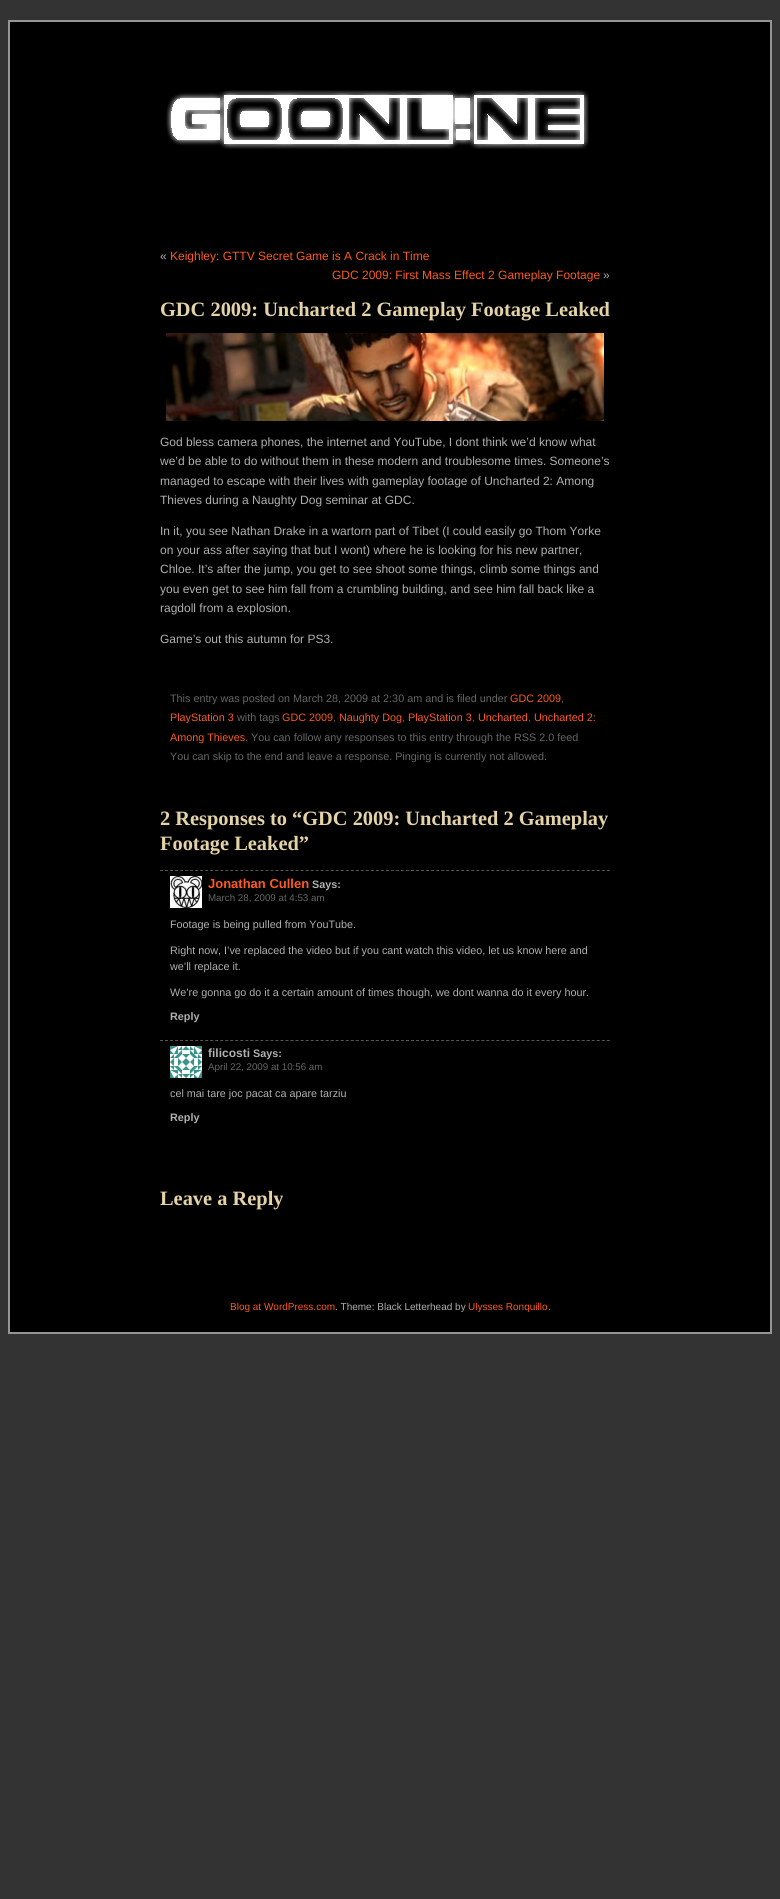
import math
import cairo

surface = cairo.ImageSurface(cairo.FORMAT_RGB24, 780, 1899)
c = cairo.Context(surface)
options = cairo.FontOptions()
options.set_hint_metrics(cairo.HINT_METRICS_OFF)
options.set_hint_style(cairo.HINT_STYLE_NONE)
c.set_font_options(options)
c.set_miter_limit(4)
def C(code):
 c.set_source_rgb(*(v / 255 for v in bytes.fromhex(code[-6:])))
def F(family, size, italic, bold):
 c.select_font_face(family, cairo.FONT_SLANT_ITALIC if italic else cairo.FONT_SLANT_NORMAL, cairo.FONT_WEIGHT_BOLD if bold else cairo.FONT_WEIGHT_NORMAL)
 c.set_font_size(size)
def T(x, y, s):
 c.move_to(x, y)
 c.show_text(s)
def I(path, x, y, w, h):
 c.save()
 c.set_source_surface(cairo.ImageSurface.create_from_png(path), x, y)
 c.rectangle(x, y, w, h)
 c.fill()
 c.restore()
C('333333')
c.paint()
C('000000')
c.rectangle(9,21,762,1312)
c.fill_preserve()
C('959596')
c.stroke()
I('1.png',166,90,423,59)
F('Liberation Sans',12,0,0)
C('b0b0b0')
T(160,260,'«')
C('fd5a1e')
T(170,260,'Keighley: GTTV Secret Game is A Crack in Time')
T(332,279,'GDC 2009: First Mass Effect 2 Gameplay Footage')
C('b0b0b0')
T(603,279,'»')
F('Liberation Serif',20.4,0,1)
C('e4d3a6')
T(160,316,'GDC 2009: Uncharted 2 Gameplay Footage Leaked')
I('2.png',166,333,438,88)
F('Liberation Sans',12,0,0)
C('b0b0b0')
T(160,446,'God bless camera phones, the internet and YouTube, I dont think we’d know what')
T(160,465,'we’d be able to do without them in these modern and troublesome times. Someone’s')
T(160,485,'managed to escape with their lives with gameplay footage of Uncharted 2: Among')
T(160,504,'Thieves during a Naughty Dog seminar at GDC.')
T(160,535,'In it, you see Nathan Drake in a wartorn part of Tibet (I could easily go Thom Yorke')
T(160,554,'on your ass after saying that but I wont) where he is looking for his new partner,')
T(160,573,'Chloe. It’s after the jump, you get to see shoot some things, climb some things and')
T(160,593,'you even get to see him fall from a crumbling building, and see him fall back like a')
T(160,612,'ragdoll from a explosion.')
T(160,643,'Game’s out this autumn for PS3.')
F('Liberation Sans',10.8,0,0)
C('666666')
T(170,702,'This entry was posted on March 28, 2009 at 2:30 am and is filed under')
C('fd5a1e')
T(510,702,'GDC 2009')
C('666666')
T(561,702,',')
C('fd5a1e')
T(170,721,'PlayStation 3')
C('666666')
T(237,721,'with tags')
C('fd5a1e')
T(282,721,'GDC 2009')
C('666666')
T(333,721,',')
C('fd5a1e')
T(339,721,'Naughty Dog')
C('666666')
T(402,721,',')
C('fd5a1e')
T(408,721,'PlayStation 3')
C('666666')
T(472,721,',')
C('fd5a1e')
T(478,721,'Uncharted')
C('666666')
T(528,721,',')
C('fd5a1e')
T(534,721,'Uncharted 2:')
T(170,741,'Among Thieves')
C('666666')
T(245,741,'. You can follow any responses to this entry through the RSS 2.0 feed')
T(170,760,'You can skip to the end and leave a response. Pinging is currently not allowed.')
F('Liberation Serif',20.4,0,1)
C('e4d3a6')
T(160,825,'2 Responses to “GDC 2009: Uncharted 2 Gameplay')
T(160,850,'Footage Leaked”')
c.new_path()
c.move_to(160,870.5)
c.line_to(610,870.5)
C('555555')
c.set_line_width(1)
c.set_dash([3,2.02])
c.stroke()
I('3.png',170,876,32,32)
F('Liberation Sans',13,0,1)
C('fd5a1e')
T(208,888,'Jonathan Cullen')
F('Liberation Sans',10.8,0,1)
C('b0b0b0')
T(312,888,'Says:')
F('Liberation Sans',9.75,0,0)
C('666666')
T(208,901,'March 28, 2009 at 4:53 am')
F('Liberation Sans',10.8,0,0)
C('b0b0b0')
T(170,928,'Footage is being pulled from YouTube.')
T(170,954,'Right now, I’ve replaced the video but if you cant watch this video, let us know here and')
T(170,970,'we’ll replace it.')
T(170,996,'We’re gonna go do it a certain amount of times though, we dont wanna do it every hour.')
F('Liberation Sans',10.8,0,1)
T(170,1020,'Reply')
c.new_path()
c.move_to(160,1040.5)
c.line_to(610,1040.5)
C('555555')
c.stroke()
I('4.png',170,1046,32,32)
F('Liberation Sans',12,0,1)
C('b0b0b0')
T(208,1057,'filicosti')
F('Liberation Sans',10.8,0,1)
T(253,1057,'Says:')
F('Liberation Sans',9.75,0,0)
C('666666')
T(208,1070,'April 22, 2009 at 10:56 am')
F('Liberation Sans',10.8,0,0)
C('b0b0b0')
T(170,1097,'cel mai tare joc pacat ca apare tarziu')
F('Liberation Sans',10.8,0,1)
T(170,1121,'Reply')
F('Liberation Serif',20.4,0,1)
C('e4d3a6')
T(160,1205,'Leave a Reply')
F('Liberation Sans',10,0,0)
C('fd5a1e')
T(230,1310,'Blog at WordPress.com')
C('b0b0b0')
T(335,1310,'. Theme: Black Letterhead by')
C('fd5a1e')
T(468,1310,'Ulysses Ronquillo')
C('b0b0b0')
T(548,1310,'.')
surface.write_to_png('o.png')
